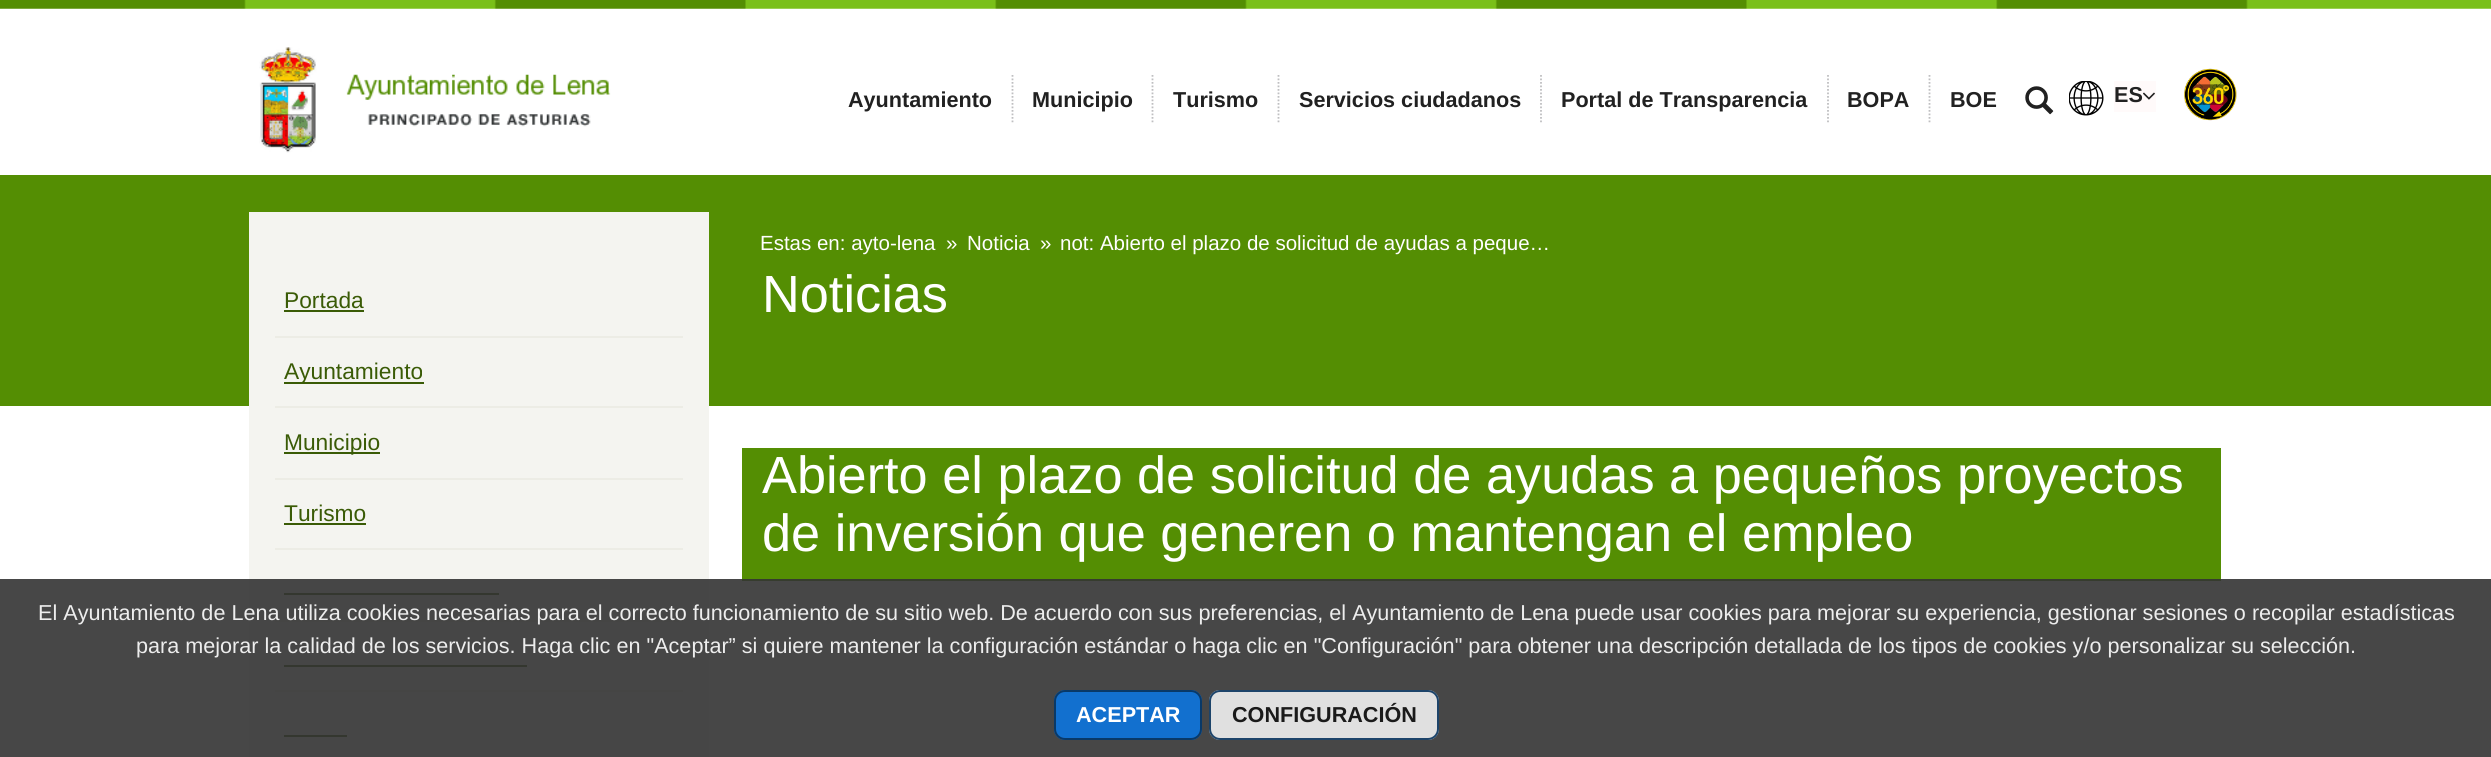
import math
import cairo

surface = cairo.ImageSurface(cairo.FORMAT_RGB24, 2491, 757)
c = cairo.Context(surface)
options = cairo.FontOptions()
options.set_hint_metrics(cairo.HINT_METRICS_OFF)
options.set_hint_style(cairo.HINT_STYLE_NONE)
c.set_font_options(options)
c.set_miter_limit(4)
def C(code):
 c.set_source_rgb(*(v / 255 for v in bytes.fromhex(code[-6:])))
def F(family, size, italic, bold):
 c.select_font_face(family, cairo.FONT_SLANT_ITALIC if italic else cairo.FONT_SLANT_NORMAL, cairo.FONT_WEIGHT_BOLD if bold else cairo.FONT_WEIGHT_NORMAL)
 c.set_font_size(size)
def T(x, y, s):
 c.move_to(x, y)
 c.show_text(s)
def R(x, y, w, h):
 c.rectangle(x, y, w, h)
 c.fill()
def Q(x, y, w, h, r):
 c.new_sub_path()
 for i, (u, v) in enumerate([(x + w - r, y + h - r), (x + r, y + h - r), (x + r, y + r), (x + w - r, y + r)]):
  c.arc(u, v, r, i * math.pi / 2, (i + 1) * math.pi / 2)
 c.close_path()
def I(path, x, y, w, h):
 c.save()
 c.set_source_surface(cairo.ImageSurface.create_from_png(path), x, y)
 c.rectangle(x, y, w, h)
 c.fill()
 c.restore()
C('ffffff')
c.paint()
I('1.png',0,0,2491,9)
I('2.png',259,47,352,106)
c.new_path()
c.move_to(1012.5,75)
c.line_to(1012.5,124)
C('bfbfc1')
c.set_line_width(1.8)
c.set_dash([1.75,1.75])
c.stroke()
F('Liberation Sans',21.61,0,1)
C('212121')
T(848,107,'Ayuntamiento')
c.new_path()
c.move_to(1152.5,75)
c.line_to(1152.5,124)
C('bfbfc1')
c.stroke()
C('212121')
T(1032,107,'Municipio')
c.new_path()
c.move_to(1278.5,75)
c.line_to(1278.5,124)
C('bfbfc1')
c.stroke()
C('212121')
T(1173,107,'Turismo')
c.new_path()
c.move_to(1541,75)
c.line_to(1541,124)
C('bfbfc1')
c.stroke()
C('212121')
T(1299,107,'Servicios ciudadanos')
c.new_path()
c.move_to(1828,75)
c.line_to(1828,124)
C('bfbfc1')
c.stroke()
C('212121')
T(1561,107,'Portal de Transparencia')
c.new_path()
c.move_to(1929.5,75)
c.line_to(1929.5,124)
C('bfbfc1')
c.stroke()
C('212121')
T(1847,107,'BOPA')
T(1950,107,'BOE')
I('3.png',2025,86,29,29)
I('4.png',2069,81,35,35)
C('fffafa')
R(2114,81,42,31)
C('212121')
T(2114,102,'ES')
I('5.png',2143,92,12,8)
I('6.png',2184,68,53,53)
C('548e03')
R(0,175,2491,231)
C('f4f4f0')
R(249,212,460,545)
C('ecece5')
R(275,336,408,2)
F('Liberation Sans',22.75,0,0)
C('3a5b06')
T(284,308,'Portada')
R(284,310,80,2)
C('ecece5')
R(275,406,408,2)
C('3a5b06')
R(284,382,140,2)
T(284,379,'Ayuntamiento')
C('ecece5')
R(275,478,408,2)
C('3a5b06')
R(284,452,96,2)
T(284,450,'Municipio')
C('ecece5')
R(275,548,408,2)
C('3a5b06')
T(284,521,'Turismo')
R(284,523,82,2)
C('ecece5')
R(275,620,408,2)
C('3a5b06')
R(284,593,215,2)
C('ecece5')
R(275,690,408,2)
C('3a5b06')
R(284,665,243,2)
R(284,735,63,2)
F('Liberation Sans',20.5,0,0)
C('ffffff')
T(760,250,'Estas en: ayto-lena')
T(946,250,'»')
T(967,250,'Noticia')
T(1040,250,'»')
T(1060,250,'not: Abierto el plazo de solicitud de ayudas a peque…')
F('Liberation Sans',52.3,0,0)
T(762,312,'Noticias')
C('548e03')
R(742,448,1479,133)
C('ffffff')
T(762,493,'Abierto el plazo de solicitud de ayudas a pequeños proyectos')
T(762,551,'de inversión que generen o mantengan el empleo')
c.set_source_rgba(0.2,0.2,0.2,0.9)
R(0,579,2491,178)
F('Liberation Sans',21.61,0,0)
C('ededed')
T(38,620,'El Ayuntamiento de Lena utiliza cookies necesarias para el correcto funcionamiento de su sitio web. De acuerdo con sus preferencias, el Ayuntamiento de Lena puede usar cookies para mejorar su experiencia, gestionar sesiones o recopilar estadísticas')
T(136,653,'para mejorar la calidad de los servicios. Haga clic en "Aceptar” si quiere mantener la configuración estándar o haga clic en "Configuración" para obtener una descripción detallada de los tipos de cookies y/o personalizar su selección.')
c.set_source_rgba(0.051,0.459,0.871,0.9)
Q(1054,690,148,50,11)
c.fill()
Q(1055,691,146,48,10)
c.set_source_rgba(0.031,0.2,0.365,0.9)
c.set_line_width(2)
c.set_dash([])
c.stroke()
F('Liberation Sans',21.61,0,1)
C('ffffff')
T(1076,722,'ACEPTAR')
c.set_source_rgba(0.945,0.945,0.945,0.9)
Q(1209,690,230,50,11)
c.fill()
Q(1210,691,228,48,10)
c.set_source_rgba(0.031,0.2,0.365,0.9)
c.stroke()
C('1a1a1a')
T(1232,722,'CONFIGURACIÓN')
surface.write_to_png('o.png')
